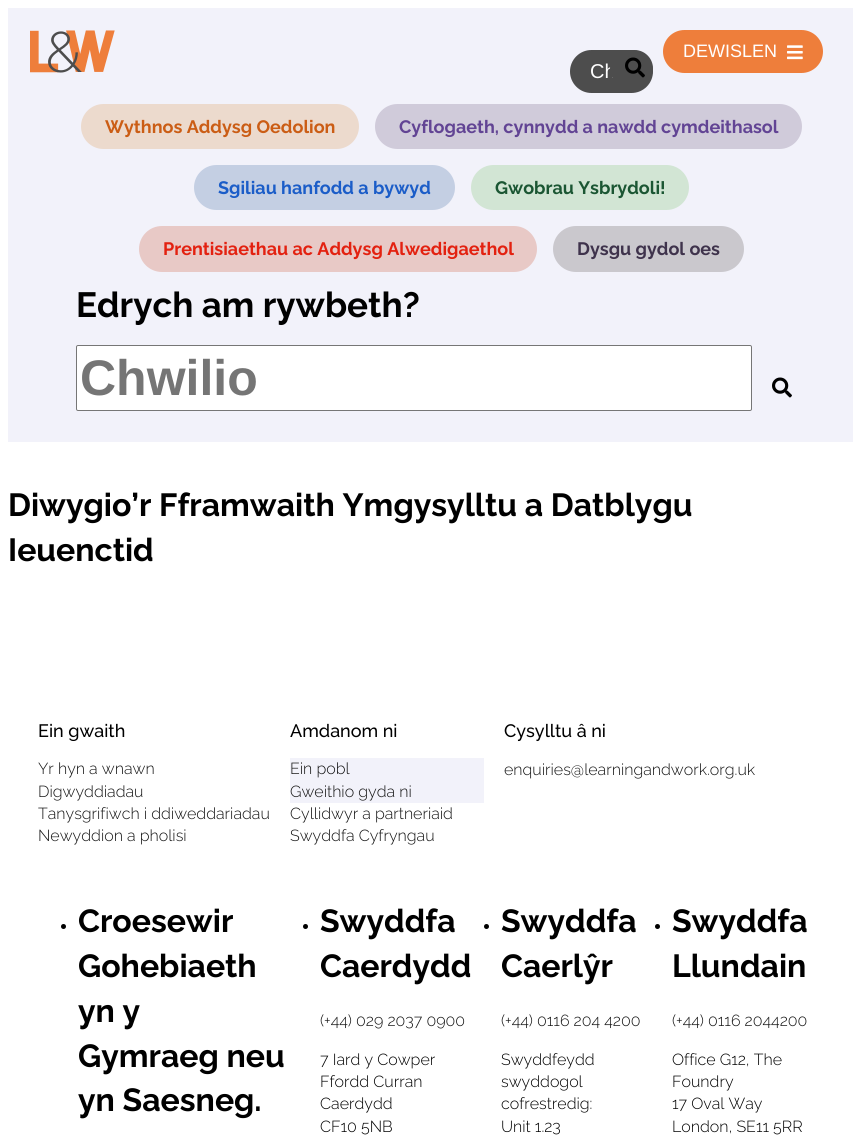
import math
import cairo

surface = cairo.ImageSurface(cairo.FORMAT_RGB24, 853, 1141)
c = cairo.Context(surface)
options = cairo.FontOptions()
options.set_hint_metrics(cairo.HINT_METRICS_OFF)
options.set_hint_style(cairo.HINT_STYLE_NONE)
c.set_font_options(options)
c.set_miter_limit(4)
def C(code):
 c.set_source_rgb(*(v / 255 for v in bytes.fromhex(code[-6:])))
def F(family, size, italic, bold):
 c.select_font_face(family, cairo.FONT_SLANT_ITALIC if italic else cairo.FONT_SLANT_NORMAL, cairo.FONT_WEIGHT_BOLD if bold else cairo.FONT_WEIGHT_NORMAL)
 c.set_font_size(size)
def T(x, y, s):
 c.move_to(x, y)
 c.show_text(s)
def R(x, y, w, h):
 c.rectangle(x, y, w, h)
 c.fill()
def Q(x, y, w, h, r):
 c.new_sub_path()
 for i, (u, v) in enumerate([(x + w - r, y + h - r), (x + r, y + h - r), (x + r, y + r), (x + w - r, y + r)]):
  c.arc(u, v, r, i * math.pi / 2, (i + 1) * math.pi / 2)
 c.close_path()
def I(path, x, y, w, h):
 c.save()
 c.set_source_surface(cairo.ImageSurface.create_from_png(path), x, y)
 c.rectangle(x, y, w, h)
 c.fill()
 c.restore()
C('ffffff')
c.paint()
C('f2f2fa')
R(8,8,845,434)
C('ee7e3b')
Q(663,30,160,43,21.5)
c.fill()
F('Liberation Sans',18,0,0)
C('ffffff')
T(683,57,'DEWISLEN')
I('1.png',787,45,16,15)
C('4d4d4d')
Q(570,50,83,43,21.5)
c.fill()
F('Liberation Sans',20,0,0)
C('ffffff')
T(590,78,'Ch')
C('4d4d4d')
Q(610,50,43,37,18.5)
c.fill()
I('2.png',625,57,20,21)
I('3.png',30,30,85,43)
C('ecdacd')
Q(81,104,278,45,22.5)
c.fill()
F('Raleway',18,0,1)
C('cb5d15')
T(105,133,'Wythnos Addysg Oedolion')
C('d0cbda')
Q(375,104,427,45,22.5)
c.fill()
C('624494')
T(399,133,'Cyflogaeth, cynnydd a nawdd cymdeithasol')
C('c4cfe3')
Q(194,165,261,45,22.5)
c.fill()
C('1b5dc8')
T(218,194,'Sgiliau hanfodd a bywyd')
C('d2e5d4')
Q(471,165,218,45,22.5)
c.fill()
C('1b5633')
T(495,194,'Gwobrau Ysbrydoli!')
C('e8c9c6')
Q(139,226,398,46,23)
c.fill()
C('e32110')
T(163,255,'Prentisiaethau ac Addysg Alwedigaethol')
C('cac8cd')
Q(553,226,191,46,23)
c.fill()
C('3f334c')
T(577,255,'Dysgu gydol oes')
F('Raleway',35,0,1)
C('000000')
T(76,317,'Edrych am rywbeth?')
C('ffffff')
Q(76.5,345.5,675,65,1.5)
c.fill_preserve()
C('767676')
c.set_line_width(1)
c.stroke()
F('Liberation Sans',50,0,1)
C('757575')
T(80,395,'Chwilio')
I('4.png',772,377,20,21)
F('Raleway',32,0,1)
C('000000')
T(8,516,'Diwygio’r Fframwaith Ymgysylltu a Datblygu')
T(8,561,'Ieuenctid')
F('Raleway Medium',18,0,0)
T(38,737,'Ein gwaith')
F('Raleway Light',16,0,0)
C('141414')
T(38,774,'Yr hyn a wnawn')
T(38,797,'Digwyddiadau')
T(38,819,'Tanysgrifiwch i ddiweddariadau')
T(38,841,'Newyddion a pholisi')
F('Raleway Medium',18,0,0)
C('000000')
T(290,737,'Amdanom ni')
C('f2f2fa')
R(290,758,194,45)
F('Raleway Light',16,0,0)
C('141414')
T(290,774,'Ein pobl')
T(290,797,'Gweithio gyda ni')
T(290,819,'Cyllidwyr a partneriaid')
T(290,841,'Swyddfa Cyfryngau')
F('Raleway Medium',18,0,0)
C('000000')
T(504,737,'Cysylltu â ni')
F('Raleway Light',16,0,0)
C('141414')
T(504,775,'enquiries@learningandwork.org.uk')
C('000000')
c.new_path()
c.arc(63.5,926.5,2.5,0,2 * math.pi)
c.fill()
F('Raleway',32,0,1)
T(78,932,'Croesewir')
T(78,977,'Gohebiaeth')
T(78,1022,'yn y')
T(78,1067,'Gymraeg neu')
T(78,1111,'yn Saesneg.')
c.new_path()
c.arc(305.5,926.5,2.5,0,2 * math.pi)
c.fill()
T(320,932,'Swyddfa')
T(320,977,'Caerdydd')
F('Raleway Light',16,0,0)
C('141414')
T(320,1026,'(+44) 029 2037 0900')
C('000000')
T(320,1065,'7 Iard y Cowper')
T(320,1087,'Ffordd Curran')
T(320,1109,'Caerdydd')
T(320,1132,'CF10 5NB')
c.new_path()
c.arc(486.5,926.5,2.5,0,2 * math.pi)
c.fill()
F('Raleway',32,0,1)
T(501,932,'Swyddfa')
T(501,977,'Caerlŷr')
F('Raleway Light',16,0,0)
C('141414')
T(501,1026,'(+44) 0116 204 4200')
C('000000')
T(501,1065,'Swyddfeydd')
T(501,1087,'swyddogol')
T(501,1109,'cofrestredig:')
T(501,1132,'Unit 1.23')
c.new_path()
c.arc(657.5,926.5,2.5,0,2 * math.pi)
c.fill()
F('Raleway',32,0,1)
T(672,932,'Swyddfa')
T(672,977,'Llundain')
F('Raleway Light',16,0,0)
C('141414')
T(672,1026,'(+44) 0116 2044200')
C('000000')
T(672,1065,'Office G12, The')
T(672,1087,'Foundry')
T(672,1109,'17 Oval Way')
T(672,1132,'London, SE11 5RR')
surface.write_to_png('o.png')
